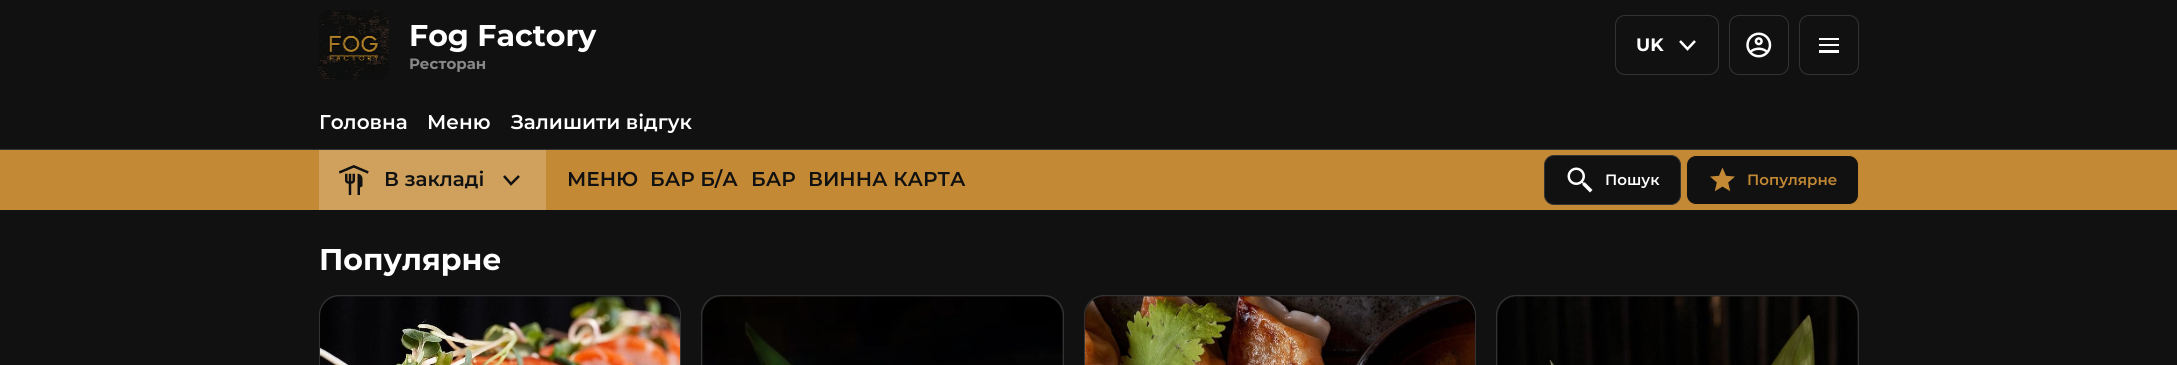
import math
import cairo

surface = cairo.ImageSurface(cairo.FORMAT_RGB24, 2177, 365)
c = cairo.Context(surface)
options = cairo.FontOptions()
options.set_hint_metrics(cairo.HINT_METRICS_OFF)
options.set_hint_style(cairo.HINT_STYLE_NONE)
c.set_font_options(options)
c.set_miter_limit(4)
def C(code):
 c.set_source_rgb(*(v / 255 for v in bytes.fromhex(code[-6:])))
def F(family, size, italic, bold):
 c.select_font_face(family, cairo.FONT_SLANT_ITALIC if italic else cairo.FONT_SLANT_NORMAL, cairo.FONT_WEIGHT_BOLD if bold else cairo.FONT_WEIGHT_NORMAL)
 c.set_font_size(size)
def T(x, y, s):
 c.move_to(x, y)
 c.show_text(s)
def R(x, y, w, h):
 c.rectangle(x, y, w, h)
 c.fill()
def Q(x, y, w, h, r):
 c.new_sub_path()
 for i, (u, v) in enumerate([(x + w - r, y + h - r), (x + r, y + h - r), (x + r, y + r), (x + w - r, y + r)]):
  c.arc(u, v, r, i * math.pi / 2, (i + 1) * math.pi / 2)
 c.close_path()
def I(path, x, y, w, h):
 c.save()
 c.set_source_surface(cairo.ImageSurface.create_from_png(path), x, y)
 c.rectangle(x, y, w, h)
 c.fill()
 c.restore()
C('111111')
c.paint()
I('1.png',318,10,71,70)
F('Montserrat',30,0,1)
C('ffffff')
T(409,46,'Fog Factory')
F('Montserrat',15,0,1)
C('888888')
T(409,69,'Ресторан')
Q(1615.5,15.5,103,59,9.5)
C('333333')
c.set_line_width(1)
c.stroke()
F('Montserrat',18,0,1)
C('ffffff')
T(1636,51,'UK')
c.new_path()
c.move_to(1680,41)
c.line_to(1687.5,49)
c.line_to(1695,41)
c.set_line_width(2.5)
c.stroke()
Q(1729.5,15.5,59,59,9.5)
C('333333')
c.set_line_width(1)
c.stroke()
I('2.png',1746,32,26,26)
Q(1799.5,15.5,59,59,9.5)
c.stroke()
C('ffffff')
R(1819,38,20,2)
R(1819,44,20,2)
R(1819,50,20,3)
C('333333')
R(0,149,2177,1)
F('Montserrat SemiBold',20,0,0)
C('ffffff')
T(319,129,'Головна')
T(427,129,'Меню')
T(511,129,'Залишити відгук')
C('c48934')
R(0,150,2177,60)
C('d0a15d')
R(319,150,227,60)
I('3.png',339,165,30,30)
C('111111')
T(384,186,'В закладі')
c.new_path()
c.move_to(504,176)
c.line_to(511,184)
c.line_to(519,176)
c.set_line_width(2.5)
c.stroke()
T(567,186,'МЕНЮ')
T(650,186,'БАР Б/А')
T(751,186,'БАР')
T(808,186,'ВИННА КАРТА')
Q(1544.5,155.5,136,49,9.5)
c.fill_preserve()
C('333333')
c.set_line_width(1)
c.stroke()
I('4.png',1567,167,26,26)
F('Montserrat SemiBold',15,0,0)
C('ffffff')
T(1605,185,'Пошук')
C('111111')
Q(1686.5,155.5,172,49,9.5)
c.fill_preserve()
C('c48934')
c.stroke()
I('5.png',1710,167,25,25)
T(1747,185,'Популярне')
F('Montserrat',30,0,1)
C('ffffff')
T(319,270,'Популярне')
C('222222')
Q(319.5,295.5,361,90,19.5)
c.fill_preserve()
C('333333')
c.stroke()
I('6.png',320,296,360,69)
C('222222')
Q(701.5,295.5,362,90,19.5)
c.fill_preserve()
C('333333')
c.stroke()
I('7.png',702,296,361,69)
C('222222')
Q(1084.5,295.5,391,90,19.5)
c.fill_preserve()
C('333333')
c.stroke()
I('8.png',1085,296,390,69)
C('222222')
Q(1496.5,295.5,362,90,19.5)
c.fill_preserve()
C('333333')
c.stroke()
I('9.png',1497,296,361,69)
surface.write_to_png('o.png')
